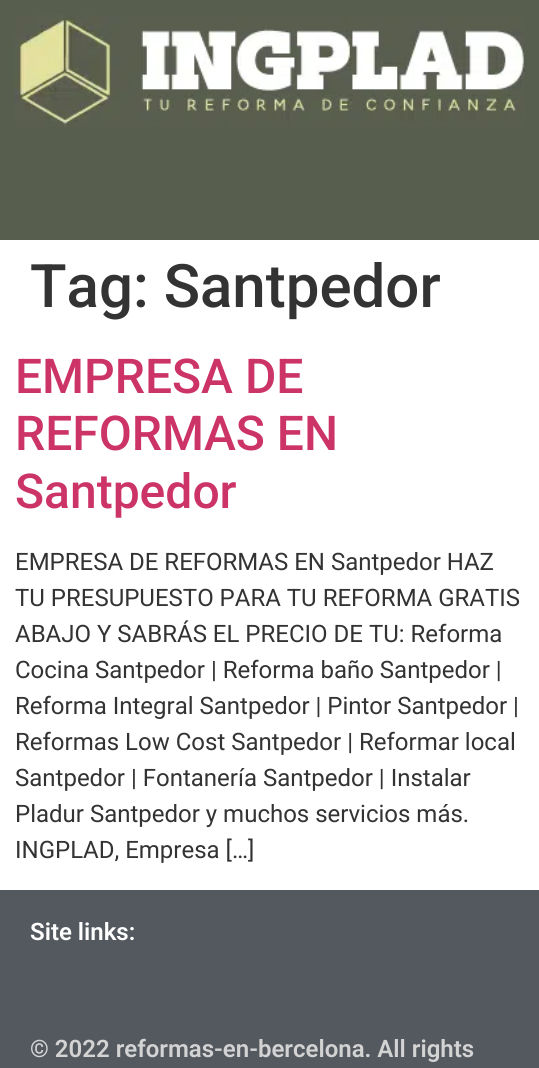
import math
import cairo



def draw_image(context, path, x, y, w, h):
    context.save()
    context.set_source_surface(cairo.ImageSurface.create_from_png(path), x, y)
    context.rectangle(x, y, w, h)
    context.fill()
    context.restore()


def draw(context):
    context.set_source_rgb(1, 1, 1)
    context.paint()
    context.set_source_rgb(88 / 255, 94 / 255, 78 / 255)
    context.rectangle(0, 0, 539, 240)
    context.fill()
    draw_image(context, "images/1.png", 15, 15, 510, 112)
    context.set_source_rgb(84 / 255, 89 / 255, 95 / 255)
    context.rectangle(0, 890, 539, 178)
    context.fill()
    context.select_font_face("Roboto Medium")
    context.set_font_size(60)
    context.set_source_rgb(51 / 255, 51 / 255, 51 / 255)
    context.move_to(30, 307)
    context.show_text("Tag: Santpedor")
    context.set_font_size(48)
    context.set_source_rgb(204 / 255, 51 / 255, 102 / 255)
    context.move_to(15, 393)
    context.show_text("EMPRESA DE")
    context.move_to(15, 450)
    context.show_text("REFORMAS EN")
    context.move_to(15, 508)
    context.show_text("Santpedor")
    context.select_font_face("Roboto")
    context.set_font_size(24)
    context.set_source_rgb(51 / 255, 51 / 255, 51 / 255)
    context.move_to(15, 570)
    context.show_text("EMPRESA DE REFORMAS EN Santpedor HAZ")
    context.move_to(15, 606)
    context.show_text("TU PRESUPUESTO PARA TU REFORMA GRATIS")
    context.move_to(15, 642)
    context.show_text("ABAJO Y SABRÁS EL PRECIO DE TU: Reforma")
    context.move_to(15, 678)
    context.show_text("Cocina Santpedor | Reforma baño Santpedor |")
    context.move_to(15, 714)
    context.show_text("Reforma Integral Santpedor | Pintor Santpedor |")
    context.move_to(15, 750)
    context.show_text("Reformas Low Cost Santpedor | Reformar local")
    context.move_to(15, 786)
    context.show_text("Santpedor | Fontanería Santpedor | Instalar")
    context.move_to(15, 822)
    context.show_text("Pladur Santpedor y muchos servicios más.")
    context.move_to(15, 858)
    context.show_text("INGPLAD, Empresa […]")
    context.select_font_face("Roboto SemiBold")
    context.set_source_rgb(1, 1, 1)
    context.move_to(30, 940)
    context.show_text("Site links:")
    context.set_source_rgb(211 / 255, 211 / 255, 211 / 255)
    context.move_to(30, 1057)
    context.show_text("© 2022 reformas-en-bercelona. All rights")


surface = cairo.ImageSurface(cairo.Format.RGB24, 539, 1068)
context = cairo.Context(surface)
options = cairo.FontOptions()
options.set_hint_metrics(cairo.HintMetrics.OFF)
options.set_hint_style(cairo.HintStyle.NONE)
context.set_font_options(options)
context.set_miter_limit(4)
draw(context)
surface.write_to_png("out.png")
